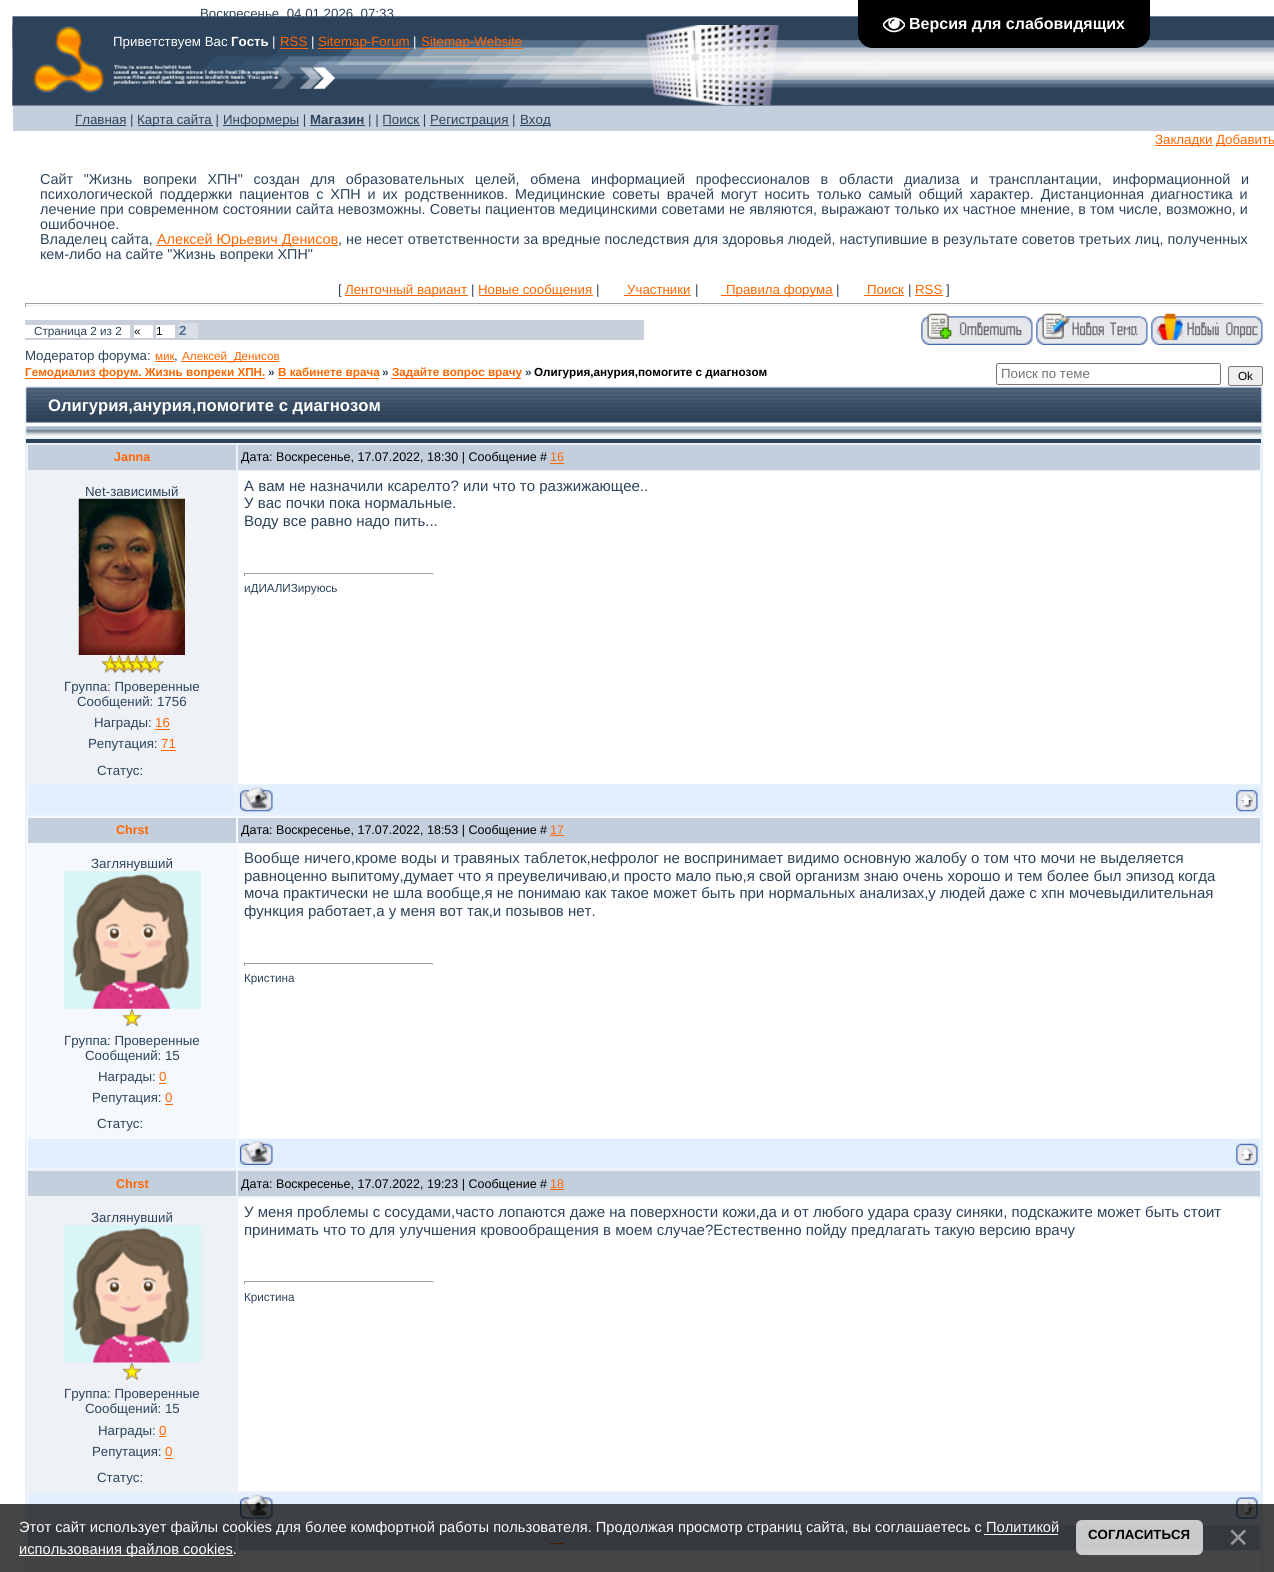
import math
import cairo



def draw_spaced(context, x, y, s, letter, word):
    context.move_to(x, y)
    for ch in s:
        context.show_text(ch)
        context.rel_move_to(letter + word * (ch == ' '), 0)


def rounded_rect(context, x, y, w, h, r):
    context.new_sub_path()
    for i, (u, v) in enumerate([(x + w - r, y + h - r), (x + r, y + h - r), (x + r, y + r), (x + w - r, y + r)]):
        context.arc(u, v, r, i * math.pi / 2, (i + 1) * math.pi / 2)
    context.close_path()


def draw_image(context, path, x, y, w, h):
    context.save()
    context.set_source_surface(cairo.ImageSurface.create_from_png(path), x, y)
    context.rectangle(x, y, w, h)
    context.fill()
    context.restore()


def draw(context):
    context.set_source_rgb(1, 1, 1)
    context.paint()
    draw_image(context, "images/1.png", 12, 16, 1262, 91)
    draw_image(context, "images/2.png", 12, 25, 873, 82)
    context.set_source_rgb(1, 102 / 255, 0)
    context.rectangle(280, 48, 28, 1)
    context.fill()
    context.rectangle(318, 48, 92, 1)
    context.fill()
    context.rectangle(420, 48, 103, 1)
    context.fill()
    context.set_source_rgb(196 / 255, 207 / 255, 221 / 255)
    context.rectangle(13, 106, 1261, 25)
    context.fill()
    context.set_source_rgb(45 / 255, 67 / 255, 91 / 255)
    context.rectangle(75, 125, 51, 1)
    context.fill()
    context.rectangle(138, 125, 75, 1)
    context.fill()
    context.rectangle(223, 125, 76, 1)
    context.fill()
    context.rectangle(310, 125, 55, 1)
    context.fill()
    context.rectangle(430, 125, 79, 1)
    context.fill()
    context.rectangle(520, 125, 30, 1)
    context.fill()
    context.rectangle(383, 125, 37, 1)
    context.fill()
    context.set_source_rgb(1, 102 / 255, 0)
    context.rectangle(1155, 145, 58, 1)
    context.fill()
    context.rectangle(1216, 145, 58, 1)
    context.fill()
    context.rectangle(156, 245, 182, 1)
    context.fill()
    context.rectangle(345, 295, 123, 1)
    context.fill()
    context.rectangle(479, 295, 114, 1)
    context.fill()
    context.rectangle(624, 295, 67, 1)
    context.fill()
    context.rectangle(721, 295, 112, 1)
    context.fill()
    context.rectangle(864, 295, 40, 1)
    context.fill()
    context.rectangle(915, 295, 28, 1)
    context.fill()
    context.set_source_rgb(159 / 255, 159 / 255, 159 / 255)
    context.rectangle(25, 303, 1238, 1)
    context.fill()
    context.set_source_rgb(238 / 255, 238 / 255, 238 / 255)
    context.rectangle(1261, 303, 1, 4)
    context.fill()
    context.rectangle(25, 305, 1238, 1)
    context.fill()
    context.set_source_rgb(159 / 255, 159 / 255, 159 / 255)
    context.rectangle(25, 303, 1, 4)
    context.fill()
    context.set_source_rgb(201 / 255, 208 / 255, 219 / 255)
    context.rectangle(25, 320, 619, 20)
    context.fill()
    context.set_source_rgb(1, 1, 1)
    context.rectangle(25, 325, 105, 13)
    context.fill()
    context.rectangle(134, 325, 19, 13)
    context.fill()
    context.rectangle(156, 325, 19, 13)
    context.fill()
    context.set_source_rgb(218 / 255, 223 / 255, 231 / 255)
    context.rectangle(179, 323, 19, 15)
    context.fill()
    draw_image(context, "images/3.png", 921, 313, 112, 32)
    draw_image(context, "images/4.png", 1036, 313, 112, 32)
    draw_image(context, "images/5.png", 1151, 313, 112, 32)
    context.set_source_rgb(1, 102 / 255, 0)
    context.rectangle(155, 361, 19, 1)
    context.fill()
    context.rectangle(181, 361, 98, 1)
    context.fill()
    context.rectangle(25, 378, 240, 1)
    context.fill()
    context.rectangle(278, 378, 101, 1)
    context.fill()
    context.rectangle(391, 378, 130, 1)
    context.fill()
    rounded_rect(context, 996.5, 363.5, 224, 21, 2)
    context.set_source_rgb(118 / 255, 118 / 255, 118 / 255)
    context.set_line_width(1)
    context.stroke()
    context.set_source_rgb(239 / 255, 239 / 255, 239 / 255)
    rounded_rect(context, 1228.5, 366.5, 34, 19, 2)
    context.fill_preserve()
    context.set_source_rgb(118 / 255, 118 / 255, 118 / 255)
    context.stroke()
    context.set_source_rgb(231 / 255, 241 / 255, 1)
    context.rectangle(25, 386, 1238, 1186)
    context.fill()
    draw_image(context, "images/6.png", 26, 387, 1236, 51)
    context.set_source_rgb(45 / 255, 67 / 255, 91 / 255)
    context.rectangle(26, 439, 1235, 4)
    context.fill()
    context.set_source_rgb(238 / 255, 242 / 255, 247 / 255)
    context.rectangle(26, 444, 1235, 371)
    context.fill()
    context.set_source_rgb(196 / 255, 207 / 255, 221 / 255)
    context.rectangle(28, 445, 208, 25)
    context.fill()
    context.rectangle(238, 445, 1022, 25)
    context.fill()
    context.set_source_rgb(1, 102 / 255, 0)
    context.rectangle(550, 463, 14, 1)
    context.fill()
    draw_image(context, "images/7.png", 78, 498, 107, 157)
    draw_image(context, "images/8.png", 101, 655, 63, 18)
    context.rectangle(155, 729, 15, 1)
    context.fill()
    context.rectangle(161, 750, 15, 1)
    context.fill()
    context.set_source_rgb(1, 1, 1)
    context.rectangle(238, 471, 1022, 313)
    context.fill()
    context.set_source_rgb(159 / 255, 159 / 255, 159 / 255)
    context.rectangle(244, 573, 190, 1)
    context.fill()
    context.set_source_rgb(238 / 255, 238 / 255, 238 / 255)
    context.rectangle(433, 573, 1, 3)
    context.fill()
    context.set_source_rgb(159 / 255, 159 / 255, 159 / 255)
    context.rectangle(244, 573, 1, 3)
    context.fill()
    context.set_source_rgb(226 / 255, 239 / 255, 1)
    context.rectangle(28, 785, 208, 29)
    context.fill()
    context.rectangle(238, 785, 1022, 29)
    context.fill()
    draw_image(context, "images/9.png", 240, 787, 33, 25)
    draw_image(context, "images/10.png", 1236, 789, 22, 23)
    context.set_source_rgb(245 / 255, 249 / 255, 253 / 255)
    context.rectangle(26, 816, 1235, 353)
    context.fill()
    context.set_source_rgb(196 / 255, 207 / 255, 221 / 255)
    context.rectangle(28, 818, 208, 25)
    context.fill()
    context.rectangle(238, 818, 1022, 25)
    context.fill()
    context.set_source_rgb(1, 102 / 255, 0)
    context.rectangle(550, 835, 14, 1)
    context.fill()
    draw_image(context, "images/11.png", 63, 871, 139, 138)
    draw_image(context, "images/12.png", 122, 1008, 20, 19)
    context.rectangle(159, 1083, 7, 1)
    context.fill()
    context.rectangle(165, 1104, 8, 1)
    context.fill()
    context.set_source_rgb(1, 1, 1)
    context.rectangle(238, 844, 1022, 294)
    context.fill()
    context.set_source_rgb(159 / 255, 159 / 255, 159 / 255)
    context.rectangle(244, 963, 190, 1)
    context.fill()
    context.set_source_rgb(238 / 255, 238 / 255, 238 / 255)
    context.rectangle(433, 963, 1, 3)
    context.fill()
    context.set_source_rgb(159 / 255, 159 / 255, 159 / 255)
    context.rectangle(244, 963, 1, 3)
    context.fill()
    context.set_source_rgb(226 / 255, 239 / 255, 1)
    context.rectangle(28, 1139, 208, 29)
    context.fill()
    context.rectangle(238, 1139, 1022, 29)
    context.fill()
    draw_image(context, "images/13.png", 240, 1141, 33, 24)
    draw_image(context, "images/14.png", 1236, 1143, 22, 22)
    context.set_source_rgb(238 / 255, 242 / 255, 247 / 255)
    context.rectangle(26, 1170, 1235, 353)
    context.fill()
    context.set_source_rgb(196 / 255, 207 / 255, 221 / 255)
    context.rectangle(28, 1171, 208, 25)
    context.fill()
    context.rectangle(238, 1171, 1022, 25)
    context.fill()
    context.set_source_rgb(1, 102 / 255, 0)
    context.rectangle(550, 1189, 14, 1)
    context.fill()
    draw_image(context, "images/15.png", 63, 1225, 139, 138)
    draw_image(context, "images/16.png", 122, 1362, 20, 18)
    context.rectangle(159, 1436, 7, 1)
    context.fill()
    context.rectangle(165, 1458, 8, 1)
    context.fill()
    context.set_source_rgb(1, 1, 1)
    context.rectangle(238, 1198, 1022, 293)
    context.fill()
    context.set_source_rgb(159 / 255, 159 / 255, 159 / 255)
    context.rectangle(244, 1281, 190, 1)
    context.fill()
    context.set_source_rgb(238 / 255, 238 / 255, 238 / 255)
    context.rectangle(433, 1281, 1, 3)
    context.fill()
    context.set_source_rgb(159 / 255, 159 / 255, 159 / 255)
    context.rectangle(244, 1281, 1, 3)
    context.fill()
    context.set_source_rgb(226 / 255, 239 / 255, 1)
    context.rectangle(28, 1493, 208, 28)
    context.fill()
    context.rectangle(238, 1493, 1022, 28)
    context.fill()
    draw_image(context, "images/17.png", 240, 1495, 33, 24)
    draw_image(context, "images/18.png", 1236, 1497, 22, 22)
    context.set_source_rgb(245 / 255, 249 / 255, 253 / 255)
    context.rectangle(26, 1524, 1235, 48)
    context.fill()
    context.set_source_rgb(196 / 255, 207 / 255, 221 / 255)
    context.rectangle(28, 1525, 208, 25)
    context.fill()
    context.rectangle(238, 1525, 1022, 25)
    context.fill()
    context.set_source_rgb(1, 102 / 255, 0)
    context.rectangle(550, 1543, 14, 1)
    context.fill()
    context.set_source_rgb(1, 1, 1)
    context.rectangle(238, 1551, 1022, 21)
    context.fill()
    context.set_source_rgb(0, 0, 0)
    context.new_path()
    context.move_to(858, 0)
    context.line_to(1150, 0)
    context.line_to(1150, 33)
    context.curve_to(1150, 41.5, 1143.5, 48, 1135, 48)
    context.line_to(873, 48)
    context.curve_to(864.5, 48, 858, 41.5, 858, 33)
    context.close_path()
    context.fill()
    draw_image(context, "images/19.png", 883, 17, 22, 16)
    context.set_source_rgba(0, 0, 0, 0.73)
    context.rectangle(0, 1504, 1274, 68)
    context.fill()
    context.set_source_rgb(1, 1, 1)
    context.rectangle(984, 1534, 74, 1)
    context.fill()
    context.rectangle(19, 1555, 214, 1)
    context.fill()
    context.set_source_rgba(1, 1, 1, 0.73)
    rounded_rect(context, 1076, 1520, 127, 35, 6)
    context.fill()
    context.select_font_face("Liberation Sans")
    context.set_font_size(13.3)
    context.set_source_rgb(45 / 255, 67 / 255, 91 / 255)
    context.move_to(200, 18)
    context.show_text("Воскресенье, 04.01.2026, 07:33")
    context.set_source_rgb(1, 1, 1)
    context.move_to(113, 46)
    context.show_text("Приветствуем Вас")
    context.select_font_face("Liberation Sans", cairo.FontSlant.NORMAL, cairo.FontWeight.BOLD)
    context.move_to(231, 46)
    context.show_text("Гость")
    context.select_font_face("Liberation Sans")
    context.move_to(272, 46)
    context.show_text("|")
    context.set_source_rgb(1, 102 / 255, 0)
    context.move_to(280, 46)
    context.show_text("RSS")
    context.set_source_rgb(1, 1, 1)
    context.move_to(311, 46)
    context.show_text("|")
    context.set_source_rgb(1, 102 / 255, 0)
    context.move_to(318, 46)
    context.show_text("Sitemap-Forum")
    context.set_source_rgb(1, 1, 1)
    context.move_to(413, 46)
    context.show_text("|")
    context.set_source_rgb(1, 102 / 255, 0)
    context.move_to(421, 46)
    context.show_text("Sitemap-Website")
    context.set_source_rgb(45 / 255, 67 / 255, 91 / 255)
    context.move_to(75, 124)
    context.show_text("Главная |")
    context.move_to(137, 124)
    context.show_text("Карта сайта |")
    context.move_to(223, 124)
    context.show_text("Информеры |")
    context.select_font_face("Liberation Sans", cairo.FontSlant.NORMAL, cairo.FontWeight.BOLD)
    context.move_to(310, 124)
    context.show_text("Магазин")
    context.select_font_face("Liberation Sans")
    context.move_to(368, 124)
    context.show_text("| | Поиск |")
    context.move_to(430, 124)
    context.show_text("Регистрация |")
    context.move_to(520, 124)
    context.show_text("Вход")
    context.set_source_rgb(1, 102 / 255, 0)
    context.move_to(1155, 144)
    context.show_text("Закладки")
    context.move_to(1216, 144)
    context.show_text("Добавить")
    context.set_font_size(14.38)
    context.set_source_rgb(45 / 255, 67 / 255, 91 / 255)
    draw_spaced(context, 40, 184, "Сайт \"Жизнь вопреки ХПН\" создан для образовательных целей, обмена информацией профессионалов в области диализа и трансплантации, информационной и", 0, 6.75)
    draw_spaced(context, 40, 199, "психологической поддержки пациентов с ХПН и их родственников. Медицинские советы врачей могут носить только самый общий характер. Дистанционная диагностика и", 0, 2.9)
    draw_spaced(context, 40, 214, "лечение при современном состоянии сайта невозможны. Советы пациентов медицинскими советами не являются, выражают только их частное мнение, в том числе, возможно, и", 0, 0.2)
    context.move_to(40, 229)
    context.show_text("ошибочное.")
    context.move_to(40, 244)
    context.show_text("Владелец сайта,")
    context.set_source_rgb(1, 102 / 255, 0)
    context.move_to(157, 244)
    context.show_text("Алексей Юрьевич Денисов")
    context.set_source_rgb(45 / 255, 67 / 255, 91 / 255)
    context.move_to(338, 244)
    context.show_text(", не несет ответственности за вредные последствия для здоровья людей, наступившие в результате советов третьих лиц, полученных")
    context.move_to(40, 259)
    context.show_text("кем-либо на сайте \"Жизнь вопреки ХПН\"")
    context.set_font_size(13.3)
    context.move_to(338, 294)
    context.show_text("[")
    context.set_source_rgb(1, 102 / 255, 0)
    context.move_to(345, 294)
    context.show_text("Ленточный вариант")
    context.set_source_rgb(45 / 255, 67 / 255, 91 / 255)
    context.move_to(471, 294)
    context.show_text("|")
    context.set_source_rgb(1, 102 / 255, 0)
    context.move_to(478, 294)
    context.show_text("Новые сообщения")
    context.set_source_rgb(45 / 255, 67 / 255, 91 / 255)
    context.move_to(596, 294)
    context.show_text("|")
    context.set_source_rgb(1, 102 / 255, 0)
    context.move_to(627, 294)
    context.show_text("Участники")
    context.set_source_rgb(45 / 255, 67 / 255, 91 / 255)
    context.move_to(695, 294)
    context.show_text("|")
    context.set_source_rgb(1, 102 / 255, 0)
    context.move_to(726, 294)
    context.show_text("Правила форума")
    context.set_source_rgb(45 / 255, 67 / 255, 91 / 255)
    context.move_to(836, 294)
    context.show_text("|")
    context.set_source_rgb(1, 102 / 255, 0)
    context.move_to(867, 294)
    context.show_text("Поиск")
    context.set_source_rgb(45 / 255, 67 / 255, 91 / 255)
    context.move_to(908, 294)
    context.show_text("|")
    context.set_source_rgb(1, 102 / 255, 0)
    context.move_to(915, 294)
    context.show_text("RSS")
    context.set_source_rgb(45 / 255, 67 / 255, 91 / 255)
    context.move_to(946, 294)
    context.show_text("]")
    context.set_font_size(11.7)
    context.move_to(34, 335)
    context.show_text("Страница 2 из 2")
    context.set_source_rgb(0, 0, 0)
    context.move_to(134, 335)
    context.show_text("«")
    context.move_to(156, 335)
    context.show_text("1")
    context.select_font_face("Liberation Sans", cairo.FontSlant.NORMAL, cairo.FontWeight.BOLD)
    context.set_font_size(13.3)
    context.set_source_rgb(77 / 255, 109 / 255, 145 / 255)
    context.move_to(179, 335)
    context.show_text("2")
    context.select_font_face("Liberation Sans")
    context.set_source_rgb(45 / 255, 67 / 255, 91 / 255)
    context.move_to(25, 360)
    context.show_text("Модератор форума:")
    context.set_font_size(11.7)
    context.set_source_rgb(1, 102 / 255, 0)
    context.move_to(155, 360)
    context.show_text("мик")
    context.set_font_size(13.3)
    context.set_source_rgb(45 / 255, 67 / 255, 91 / 255)
    context.move_to(174, 360)
    context.show_text(",")
    context.set_font_size(11.7)
    context.set_source_rgb(1, 102 / 255, 0)
    context.move_to(182, 360)
    context.show_text("Алексей_Денисов")
    context.select_font_face("Liberation Sans", cairo.FontSlant.NORMAL, cairo.FontWeight.BOLD)
    context.move_to(25, 376)
    context.show_text("Гемодиализ форум. Жизнь вопреки ХПН.")
    context.set_source_rgb(45 / 255, 67 / 255, 91 / 255)
    context.move_to(268, 376)
    context.show_text("»")
    context.set_source_rgb(1, 102 / 255, 0)
    context.move_to(278, 376)
    context.show_text("В кабинете врача")
    context.set_source_rgb(45 / 255, 67 / 255, 91 / 255)
    context.move_to(382, 376)
    context.show_text("»")
    context.set_source_rgb(1, 102 / 255, 0)
    context.move_to(392, 376)
    context.show_text("Задайте вопрос врачу")
    context.set_source_rgb(45 / 255, 67 / 255, 91 / 255)
    context.move_to(525, 376)
    context.show_text("»")
    context.set_source_rgb(0, 0, 0)
    context.move_to(534, 376)
    context.show_text("Олигурия,анурия,помогите с диагнозом")
    context.select_font_face("Liberation Sans")
    context.set_font_size(13.3)
    context.set_source_rgb(117 / 255, 117 / 255, 117 / 255)
    context.move_to(1001, 378)
    context.show_text("Поиск по теме")
    context.set_font_size(11.7)
    context.set_source_rgb(0, 0, 0)
    context.move_to(1238, 380)
    context.show_text("Ok")
    context.select_font_face("Liberation Sans", cairo.FontSlant.NORMAL, cairo.FontWeight.BOLD)
    context.set_font_size(16.7)
    context.set_source_rgb(1, 1, 1)
    context.move_to(48, 411)
    context.show_text("Олигурия,анурия,помогите с диагнозом")
    context.set_font_size(12.5)
    context.set_source_rgb(1, 102 / 255, 0)
    context.move_to(114, 461)
    context.show_text("Janna")
    context.select_font_face("Liberation Sans")
    context.set_source_rgb(0, 0, 0)
    context.move_to(241, 461)
    context.show_text("Дата: Воскресенье, 17.07.2022, 18:30 | Сообщение #")
    context.set_source_rgb(1, 102 / 255, 0)
    context.move_to(550, 461)
    context.show_text("16")
    context.set_font_size(13.3)
    context.set_source_rgb(45 / 255, 67 / 255, 91 / 255)
    context.move_to(85, 496)
    context.show_text("Net-зависимый")
    context.move_to(64, 691)
    context.show_text("Группа: Проверенные")
    context.move_to(77, 706)
    context.show_text("Сообщений: 1756")
    context.move_to(94, 727)
    context.show_text("Награды:")
    context.set_source_rgb(1, 102 / 255, 0)
    context.move_to(155, 727)
    context.show_text("16")
    context.set_source_rgb(45 / 255, 67 / 255, 91 / 255)
    context.move_to(88, 748)
    context.show_text("Репутация:")
    context.set_source_rgb(1, 102 / 255, 0)
    context.move_to(161, 748)
    context.show_text("71")
    context.set_source_rgb(45 / 255, 67 / 255, 91 / 255)
    context.move_to(97, 775)
    context.show_text("Статус:")
    context.set_font_size(15)
    context.move_to(244, 491)
    context.show_text("А вам не назначили ксарелто? или что то разжижающее..")
    context.move_to(244, 508)
    context.show_text("У вас почки пока нормальные.")
    context.move_to(244, 526)
    context.show_text("Воду все равно надо пить...")
    context.set_font_size(11.7)
    context.move_to(244, 592)
    context.show_text("иДИАЛИЗируюсь")
    context.select_font_face("Liberation Sans", cairo.FontSlant.NORMAL, cairo.FontWeight.BOLD)
    context.set_font_size(12.5)
    context.set_source_rgb(1, 102 / 255, 0)
    context.move_to(116, 834)
    context.show_text("Chrst")
    context.select_font_face("Liberation Sans")
    context.set_source_rgb(0, 0, 0)
    context.move_to(241, 834)
    context.show_text("Дата: Воскресенье, 17.07.2022, 18:53 | Сообщение #")
    context.set_source_rgb(1, 102 / 255, 0)
    context.move_to(550, 834)
    context.show_text("17")
    context.set_font_size(13.3)
    context.set_source_rgb(45 / 255, 67 / 255, 91 / 255)
    context.move_to(91, 868)
    context.show_text("Заглянувший")
    context.move_to(64, 1045)
    context.show_text("Группа: Проверенные")
    context.move_to(85, 1060)
    context.show_text("Сообщений: 15")
    context.move_to(98, 1081)
    context.show_text("Награды:")
    context.set_source_rgb(1, 102 / 255, 0)
    context.move_to(159, 1081)
    context.show_text("0")
    context.set_source_rgb(45 / 255, 67 / 255, 91 / 255)
    context.move_to(92, 1102)
    context.show_text("Репутация:")
    context.set_source_rgb(1, 102 / 255, 0)
    context.move_to(165, 1102)
    context.show_text("0")
    context.set_source_rgb(45 / 255, 67 / 255, 91 / 255)
    context.move_to(97, 1128)
    context.show_text("Статус:")
    context.set_font_size(15)
    context.move_to(244, 863)
    context.show_text("Вообще ничего,кроме воды и травяных таблеток,нефролог не воспринимает видимо основную жалобу о том что мочи не выделяется")
    context.move_to(244, 881)
    context.show_text("равноценно выпитому,думает что я преувеличиваю,и просто мало пью,я свой организм знаю очень хорошо и тем более был эпизод когда")
    context.move_to(244, 898)
    context.show_text("моча практически не шла вообще,я не понимаю как такое может быть при нормальных анализах,у людей даже с хпн мочевыдилительная")
    context.move_to(244, 916)
    context.show_text("функция работает,а у меня вот так,и позывов нет.")
    context.set_font_size(11.7)
    context.move_to(244, 982)
    context.show_text("Кристина")
    context.select_font_face("Liberation Sans", cairo.FontSlant.NORMAL, cairo.FontWeight.BOLD)
    context.set_font_size(12.5)
    context.set_source_rgb(1, 102 / 255, 0)
    context.move_to(116, 1188)
    context.show_text("Chrst")
    context.select_font_face("Liberation Sans")
    context.set_source_rgb(0, 0, 0)
    context.move_to(241, 1188)
    context.show_text("Дата: Воскресенье, 17.07.2022, 19:23 | Сообщение #")
    context.set_source_rgb(1, 102 / 255, 0)
    context.move_to(550, 1188)
    context.show_text("18")
    context.set_font_size(13.3)
    context.set_source_rgb(45 / 255, 67 / 255, 91 / 255)
    context.move_to(91, 1222)
    context.show_text("Заглянувший")
    context.move_to(64, 1398)
    context.show_text("Группа: Проверенные")
    context.move_to(85, 1413)
    context.show_text("Сообщений: 15")
    context.move_to(98, 1435)
    context.show_text("Награды:")
    context.set_source_rgb(1, 102 / 255, 0)
    context.move_to(159, 1435)
    context.show_text("0")
    context.set_source_rgb(45 / 255, 67 / 255, 91 / 255)
    context.move_to(92, 1456)
    context.show_text("Репутация:")
    context.set_source_rgb(1, 102 / 255, 0)
    context.move_to(165, 1456)
    context.show_text("0")
    context.set_source_rgb(45 / 255, 67 / 255, 91 / 255)
    context.move_to(97, 1482)
    context.show_text("Статус:")
    context.set_font_size(15)
    context.move_to(244, 1217)
    context.show_text("У меня проблемы с сосудами,часто лопаются даже на поверхности кожи,да и от любого удара сразу синяки, подскажите может быть стоит")
    context.move_to(244, 1235)
    context.show_text("принимать что то для улучшения кровообращения в моем случае?Естественно пойду предлагать такую версию врачу")
    context.set_font_size(11.7)
    context.move_to(244, 1301)
    context.show_text("Кристина")
    context.select_font_face("Liberation Sans", cairo.FontSlant.NORMAL, cairo.FontWeight.BOLD)
    context.set_font_size(16)
    context.set_source_rgb(1, 1, 1)
    context.move_to(909, 29)
    context.show_text("Версия для слабовидящих")
    context.select_font_face("Liberation Sans")
    context.set_font_size(14.67)
    context.move_to(19, 1532)
    context.show_text("Этот сайт использует файлы cookies для более комфортной работы пользователя. Продолжая просмотр страниц сайта, вы соглашаетесь с Политикой")
    context.move_to(19, 1554)
    context.show_text("использования файлов cookies.")
    context.select_font_face("Liberation Sans", cairo.FontSlant.NORMAL, cairo.FontWeight.BOLD)
    context.set_font_size(13.25)
    context.set_source_rgb(0, 0, 0)
    context.move_to(1088, 1539)
    context.show_text("СОГЛАСИТЬСЯ")
    context.select_font_face("Liberation Sans")
    context.set_font_size(35)
    context.set_source_rgb(153 / 255, 153 / 255, 153 / 255)
    context.move_to(1228, 1549)
    context.show_text("×")


surface = cairo.ImageSurface(cairo.Format.RGB24, 1274, 1572)
context = cairo.Context(surface)
options = cairo.FontOptions()
options.set_hint_metrics(cairo.HintMetrics.OFF)
options.set_hint_style(cairo.HintStyle.NONE)
context.set_font_options(options)
context.set_miter_limit(4)
draw(context)
surface.write_to_png("out.png")
